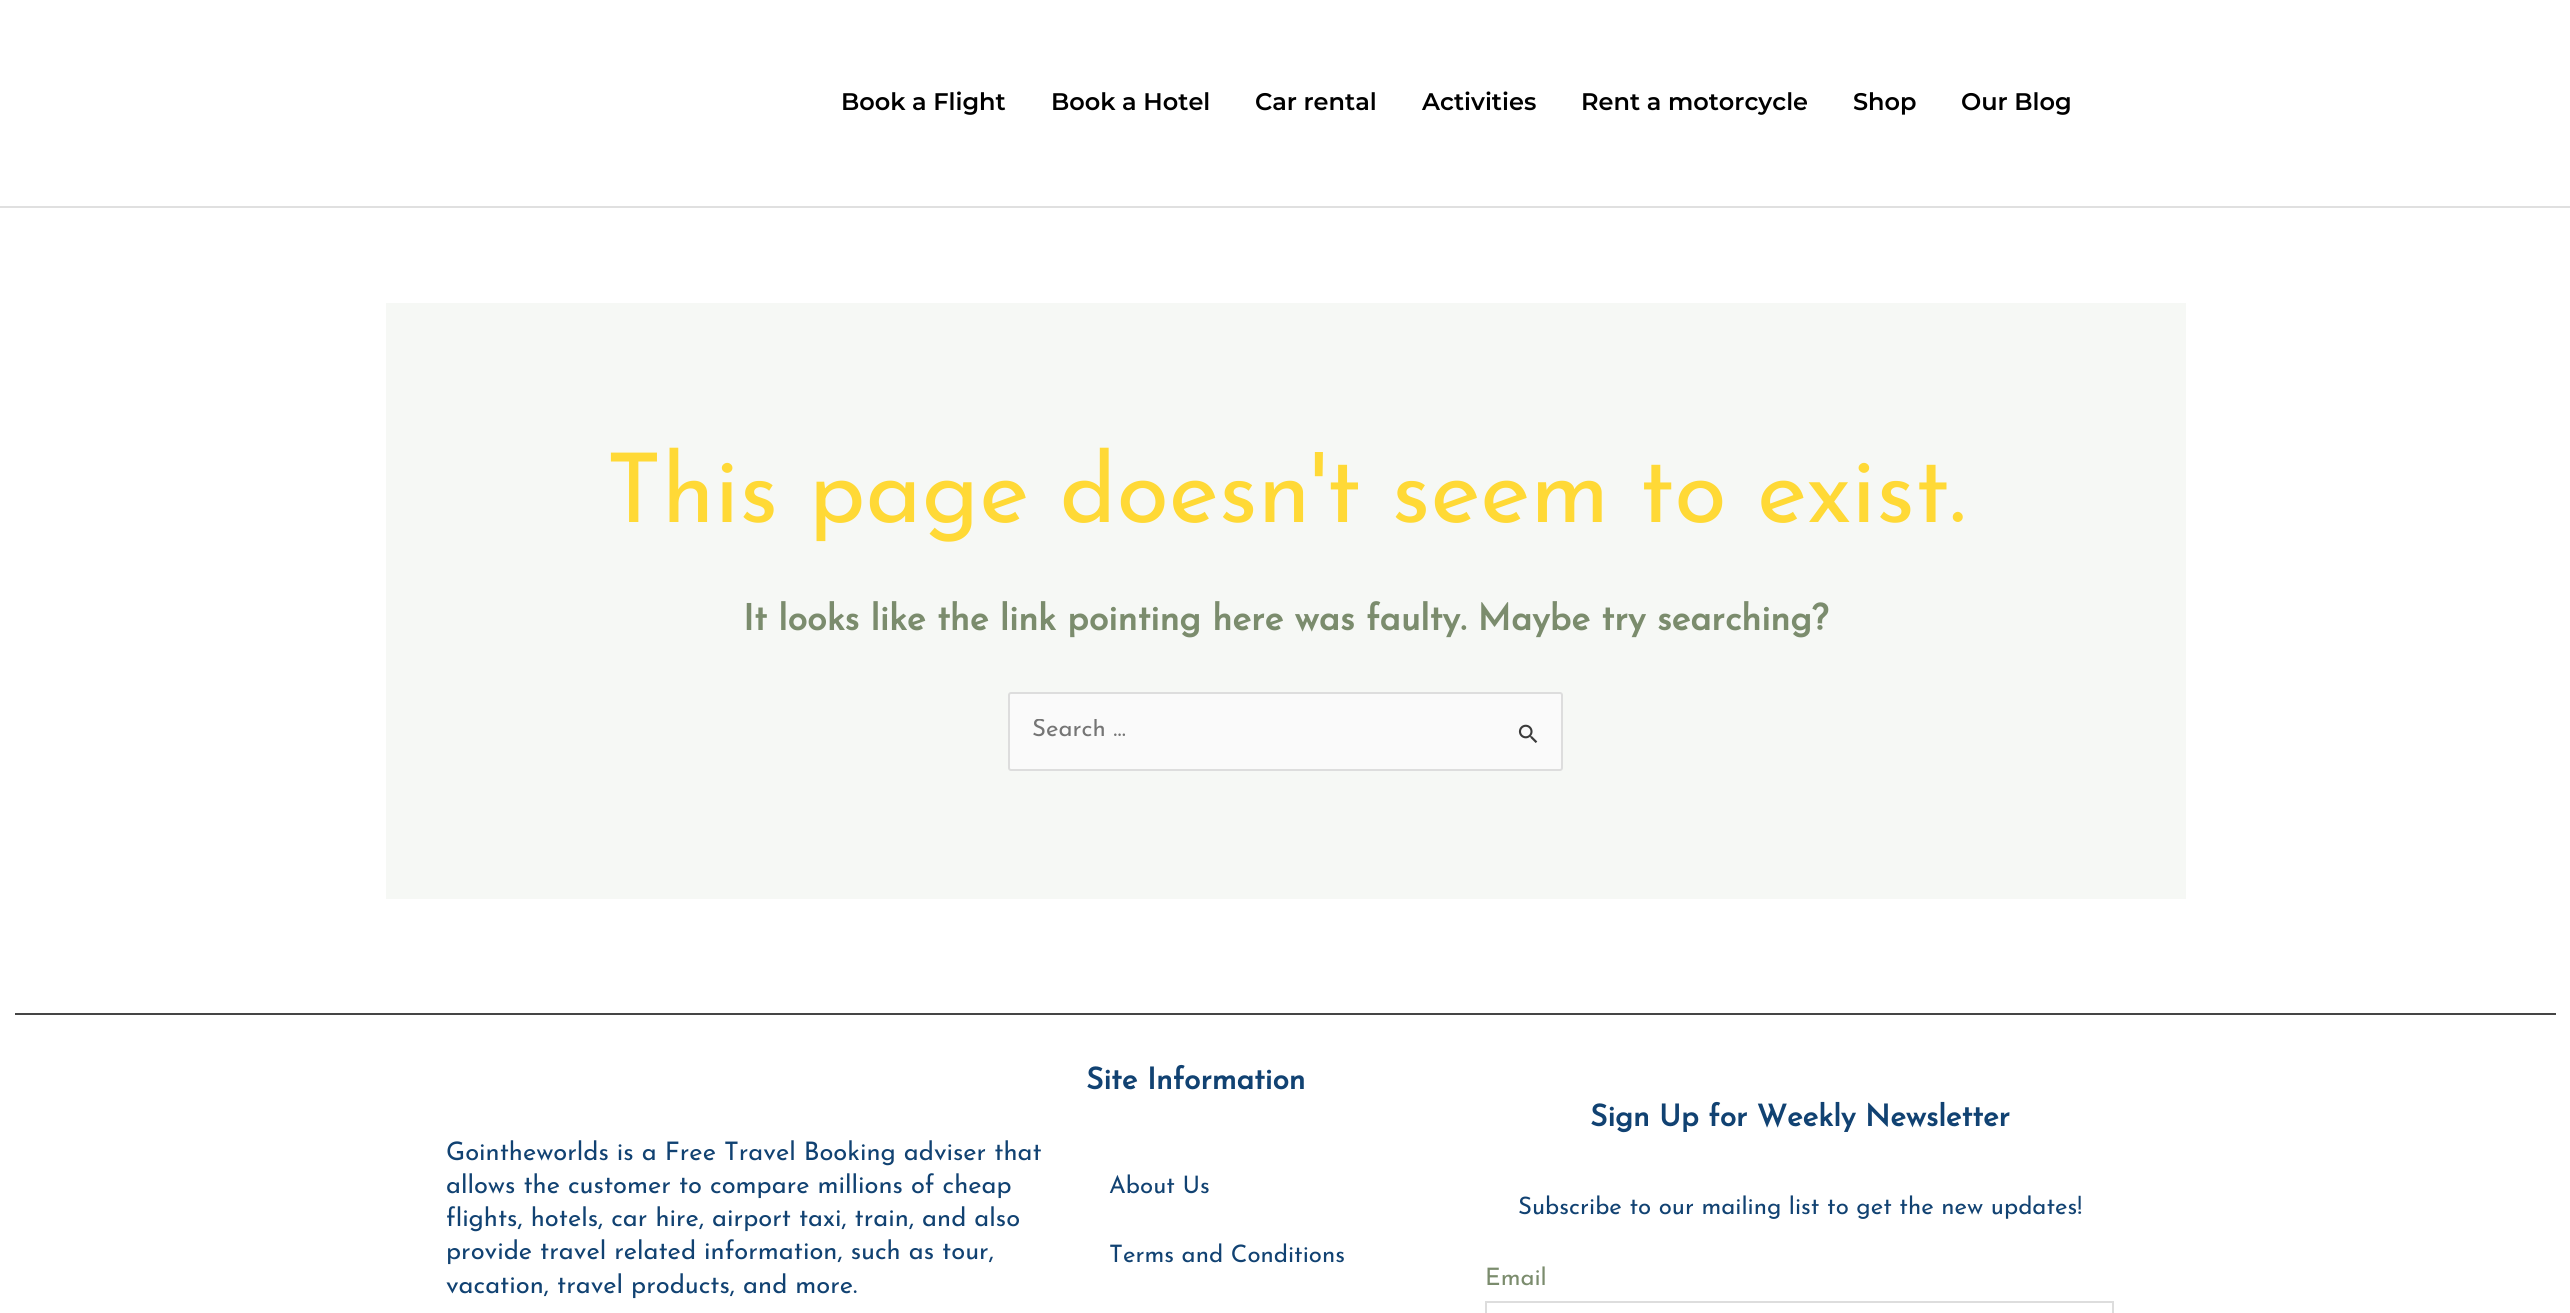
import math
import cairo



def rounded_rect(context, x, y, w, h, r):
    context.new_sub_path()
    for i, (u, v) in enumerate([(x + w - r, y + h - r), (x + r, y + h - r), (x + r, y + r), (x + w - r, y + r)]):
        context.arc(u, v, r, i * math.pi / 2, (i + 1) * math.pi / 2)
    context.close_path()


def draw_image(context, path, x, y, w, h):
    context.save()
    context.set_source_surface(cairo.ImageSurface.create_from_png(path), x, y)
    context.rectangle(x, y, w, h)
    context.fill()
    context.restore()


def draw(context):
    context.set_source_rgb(1, 1, 1)
    context.paint()
    context.set_source_rgb(224 / 255, 224 / 255, 224 / 255)
    context.rectangle(0, 206, 2570, 2)
    context.fill()
    context.set_source_rgb(246 / 255, 248 / 255, 245 / 255)
    context.rectangle(386, 303, 1800, 596)
    context.fill()
    context.set_source_rgb(250 / 255, 250 / 255, 250 / 255)
    rounded_rect(context, 1009, 693, 553, 77, 2)
    context.fill_preserve()
    context.set_source_rgb(221 / 255, 221 / 255, 221 / 255)
    context.stroke()
    draw_image(context, "images/1.png", 1518, 724, 20, 19)
    context.set_source_rgb(69 / 255, 69 / 255, 69 / 255)
    context.rectangle(15, 1013, 2541, 2)
    context.fill()
    context.rectangle(1486, 1302, 627, 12)
    context.set_source_rgb(221 / 255, 221 / 255, 221 / 255)
    context.stroke()
    context.select_font_face("Montserrat SemiBold")
    context.set_font_size(24)
    context.set_source_rgb(0, 0, 0)
    context.move_to(841, 110)
    context.show_text("Book a Flight")
    context.move_to(1051, 110)
    context.show_text("Book a Hotel")
    context.move_to(1255, 110)
    context.show_text("Car rental")
    context.move_to(1422, 110)
    context.show_text("Activities")
    context.move_to(1581, 110)
    context.show_text("Rent a motorcycle")
    context.move_to(1853, 110)
    context.show_text("Shop")
    context.move_to(1961, 110)
    context.show_text("Our Blog")
    context.select_font_face("Josefin Sans Thin")
    context.set_font_size(96)
    context.set_source_rgb(1, 217 / 255, 54 / 255)
    context.move_to(606, 522)
    context.show_text("This page doesn't seem to exist.")
    context.select_font_face("Josefin Sans", cairo.FontSlant.NORMAL, cairo.FontWeight.BOLD)
    context.set_font_size(36)
    context.set_source_rgb(123 / 255, 140 / 255, 109 / 255)
    context.move_to(743, 630)
    context.show_text("It looks like the link pointing here was faulty. Maybe try searching?")
    context.save()
    context.rectangle(1032, 719, 456, 24)
    context.clip()
    context.select_font_face("Josefin Sans Thin")
    context.set_font_size(24)
    context.set_source_rgb(117 / 255, 117 / 255, 117 / 255)
    context.move_to(1032, 736)
    context.show_text("Search …")
    context.restore()
    context.select_font_face("Josefin Sans Thin")
    context.set_font_size(25.5)
    context.set_source_rgb(17 / 255, 66 / 255, 114 / 255)
    context.move_to(446, 1160)
    context.show_text("Gointheworlds is a Free Travel Booking adviser that")
    context.move_to(446, 1193)
    context.show_text("allows the customer to compare millions of cheap")
    context.move_to(446, 1226)
    context.show_text("flights, hotels, car hire, airport taxi, train, and also")
    context.move_to(446, 1259)
    context.show_text("provide travel related information, such as tour,")
    context.move_to(446, 1293)
    context.show_text("vacation, travel products, and more.")
    context.select_font_face("Josefin Sans", cairo.FontSlant.NORMAL, cairo.FontWeight.BOLD)
    context.set_font_size(30)
    context.move_to(1086, 1089)
    context.show_text("Site Information")
    context.select_font_face("Josefin Sans Thin")
    context.set_font_size(24)
    context.move_to(1109, 1193)
    context.show_text("About Us")
    context.move_to(1109, 1262)
    context.show_text("Terms and Conditions")
    context.select_font_face("Josefin Sans", cairo.FontSlant.NORMAL, cairo.FontWeight.BOLD)
    context.set_font_size(30)
    context.move_to(1590, 1126)
    context.show_text("Sign Up for Weekly Newsletter")
    context.select_font_face("Josefin Sans Thin")
    context.set_font_size(24)
    context.move_to(1518, 1214)
    context.show_text("Subscribe to our mailing list to get the new updates!")
    context.set_source_rgb(123 / 255, 140 / 255, 109 / 255)
    context.move_to(1485, 1285)
    context.show_text("Email")


surface = cairo.ImageSurface(cairo.Format.RGB24, 2570, 1313)
context = cairo.Context(surface)
options = cairo.FontOptions()
options.set_hint_metrics(cairo.HintMetrics.OFF)
options.set_hint_style(cairo.HintStyle.NONE)
context.set_font_options(options)
context.set_miter_limit(4)
draw(context)
surface.write_to_png("out.png")
